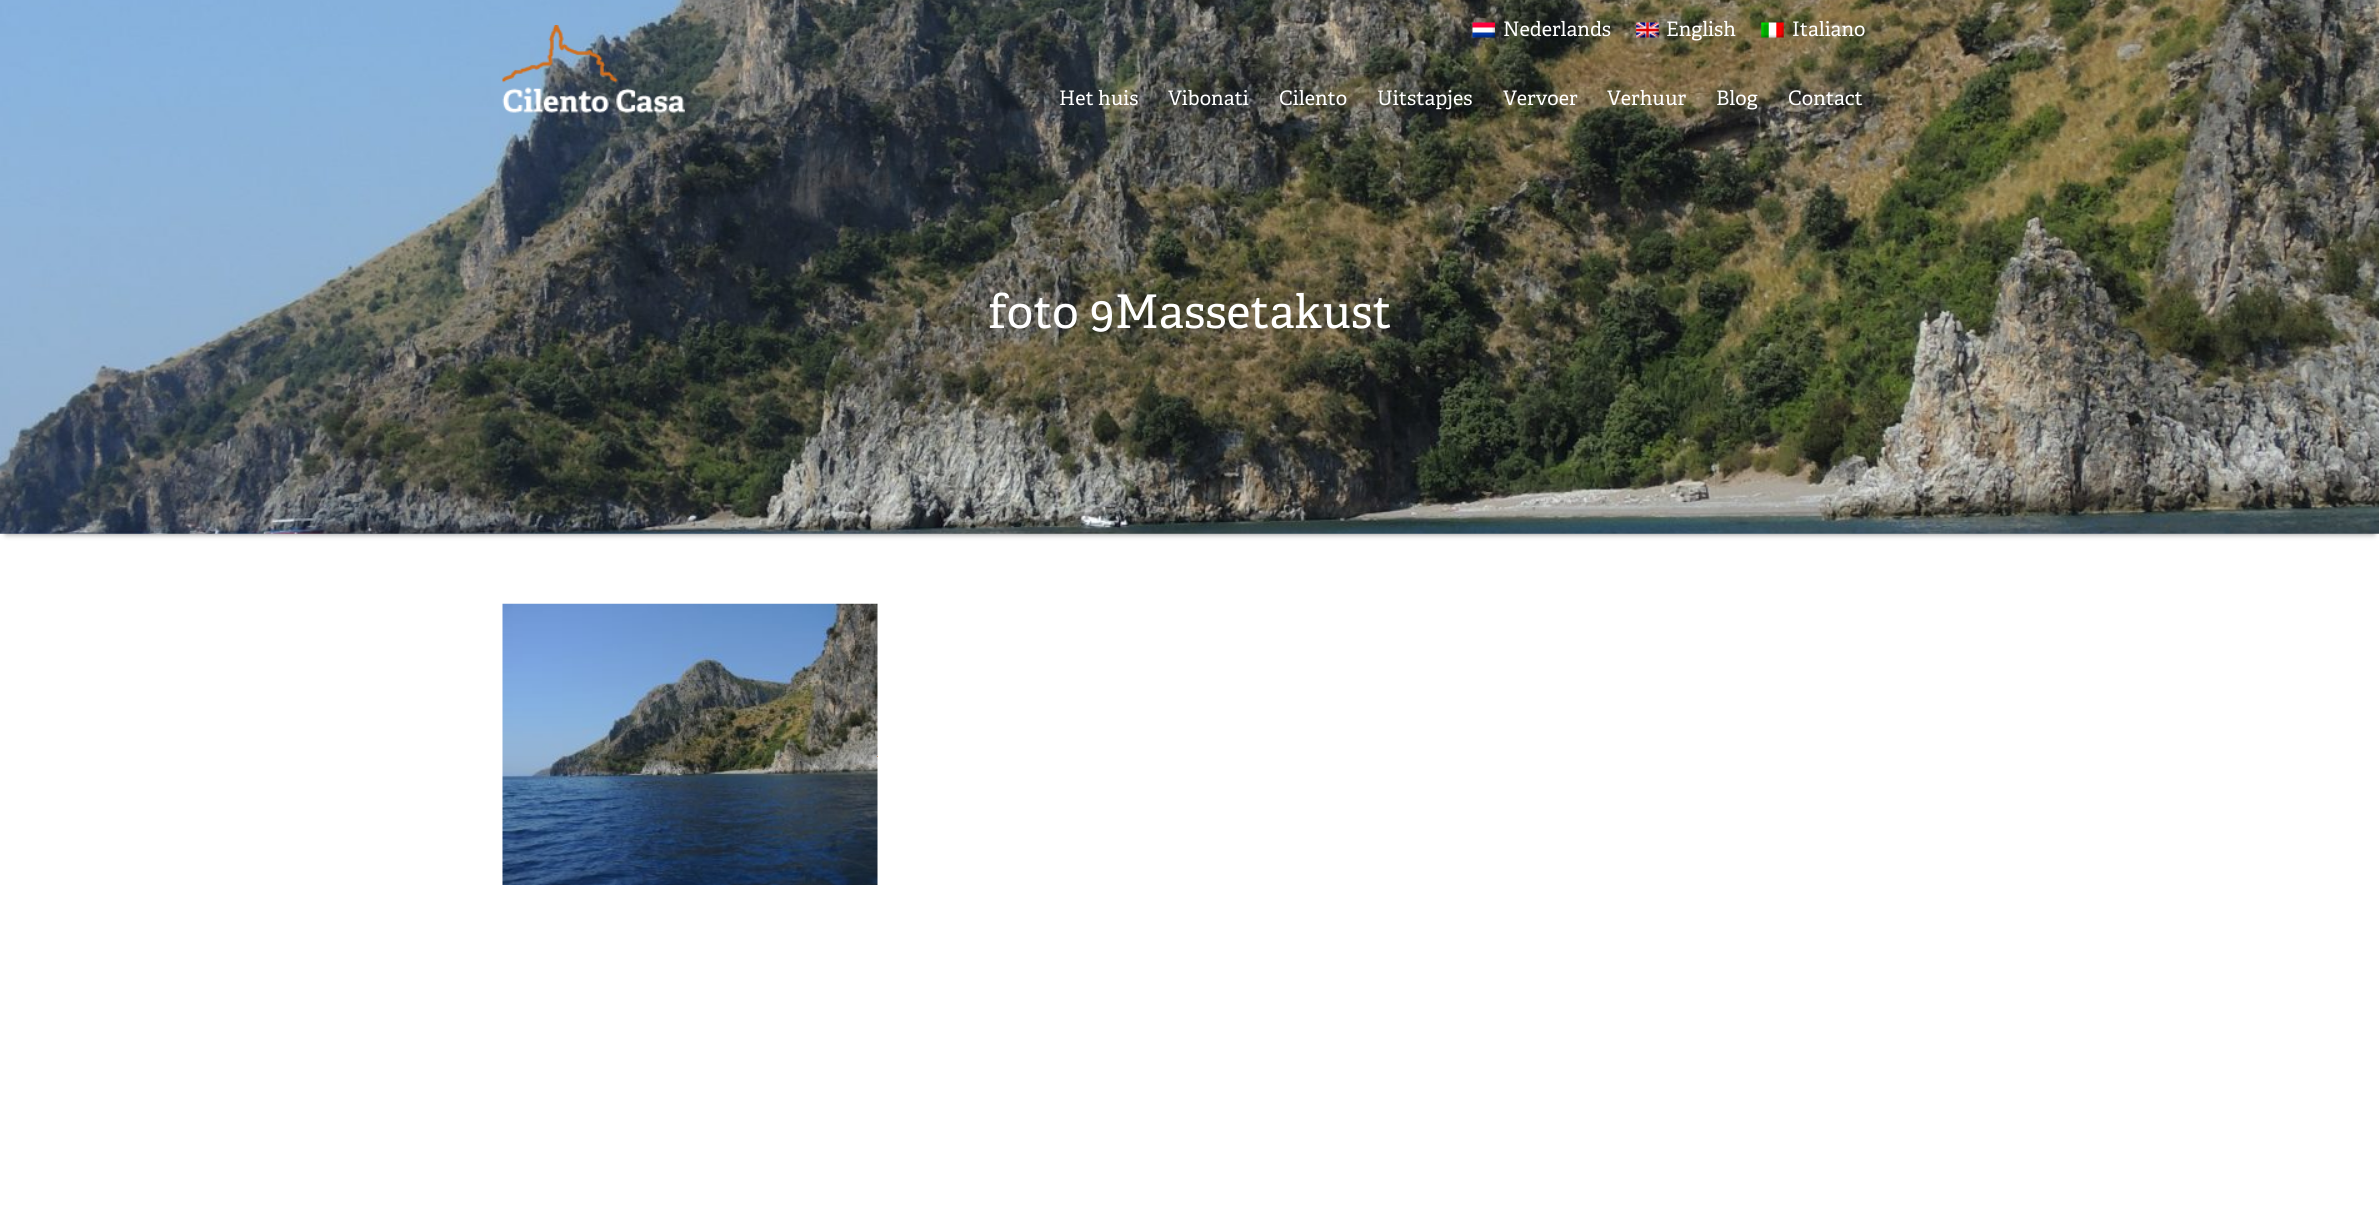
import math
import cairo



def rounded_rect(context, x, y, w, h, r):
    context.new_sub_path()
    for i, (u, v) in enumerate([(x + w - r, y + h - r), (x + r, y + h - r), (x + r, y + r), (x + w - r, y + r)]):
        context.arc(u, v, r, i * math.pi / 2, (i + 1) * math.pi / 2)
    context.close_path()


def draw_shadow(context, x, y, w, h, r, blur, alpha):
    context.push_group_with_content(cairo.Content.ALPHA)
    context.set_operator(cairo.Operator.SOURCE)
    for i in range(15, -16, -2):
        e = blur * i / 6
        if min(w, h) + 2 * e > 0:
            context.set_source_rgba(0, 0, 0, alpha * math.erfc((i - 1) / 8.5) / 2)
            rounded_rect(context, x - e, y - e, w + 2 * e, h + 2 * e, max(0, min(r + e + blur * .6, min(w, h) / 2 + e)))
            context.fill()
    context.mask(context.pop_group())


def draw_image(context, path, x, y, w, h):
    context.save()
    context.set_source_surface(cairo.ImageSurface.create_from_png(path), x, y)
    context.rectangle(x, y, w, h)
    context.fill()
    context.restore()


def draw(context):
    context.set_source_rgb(1, 1, 1)
    context.paint()
    context.set_source_rgb(136 / 255, 136 / 255, 136 / 255)
    draw_shadow(context, 6, 13, 2368, 521, 0, 3, 1)
    draw_image(context, "images/1.png", 0, 0, 2379, 534)
    draw_image(context, "images/2.png", 1472, 22, 23, 16)
    draw_image(context, "images/3.png", 1636, 22, 23, 16)
    draw_image(context, "images/4.png", 1761, 22, 23, 16)
    draw_image(context, "images/5.png", 502, 25, 183, 88)
    context.set_source_rgb(210 / 255, 111 / 255, 30 / 255)
    context.rectangle(877, 756, 1, 1)
    context.fill()
    draw_image(context, "images/6.png", 502, 603, 376, 282)
    context.select_font_face("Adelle")
    context.set_font_size(20)
    context.set_source_rgb(1, 1, 1)
    context.move_to(1503, 36)
    context.show_text("Nederlands")
    context.move_to(1666, 36)
    context.show_text("English")
    context.move_to(1792, 36)
    context.show_text("Italiano")
    context.move_to(1059, 105)
    context.show_text("Het huis")
    context.move_to(1168, 105)
    context.show_text("Vibonati")
    context.move_to(1279, 105)
    context.show_text("Cilento")
    context.move_to(1377, 105)
    context.show_text("Uitstapjes")
    context.move_to(1503, 105)
    context.show_text("Vervoer")
    context.move_to(1607, 105)
    context.show_text("Verhuur")
    context.move_to(1716, 105)
    context.show_text("Blog")
    context.move_to(1788, 105)
    context.show_text("Contact")
    context.set_font_size(46.4)
    context.move_to(988, 328)
    context.show_text("foto 9Massetakust")


surface = cairo.ImageSurface(cairo.Format.RGB24, 2379, 1206)
context = cairo.Context(surface)
options = cairo.FontOptions()
options.set_hint_metrics(cairo.HintMetrics.OFF)
options.set_hint_style(cairo.HintStyle.NONE)
context.set_font_options(options)
context.set_miter_limit(4)
draw(context)
surface.write_to_png("out.png")
